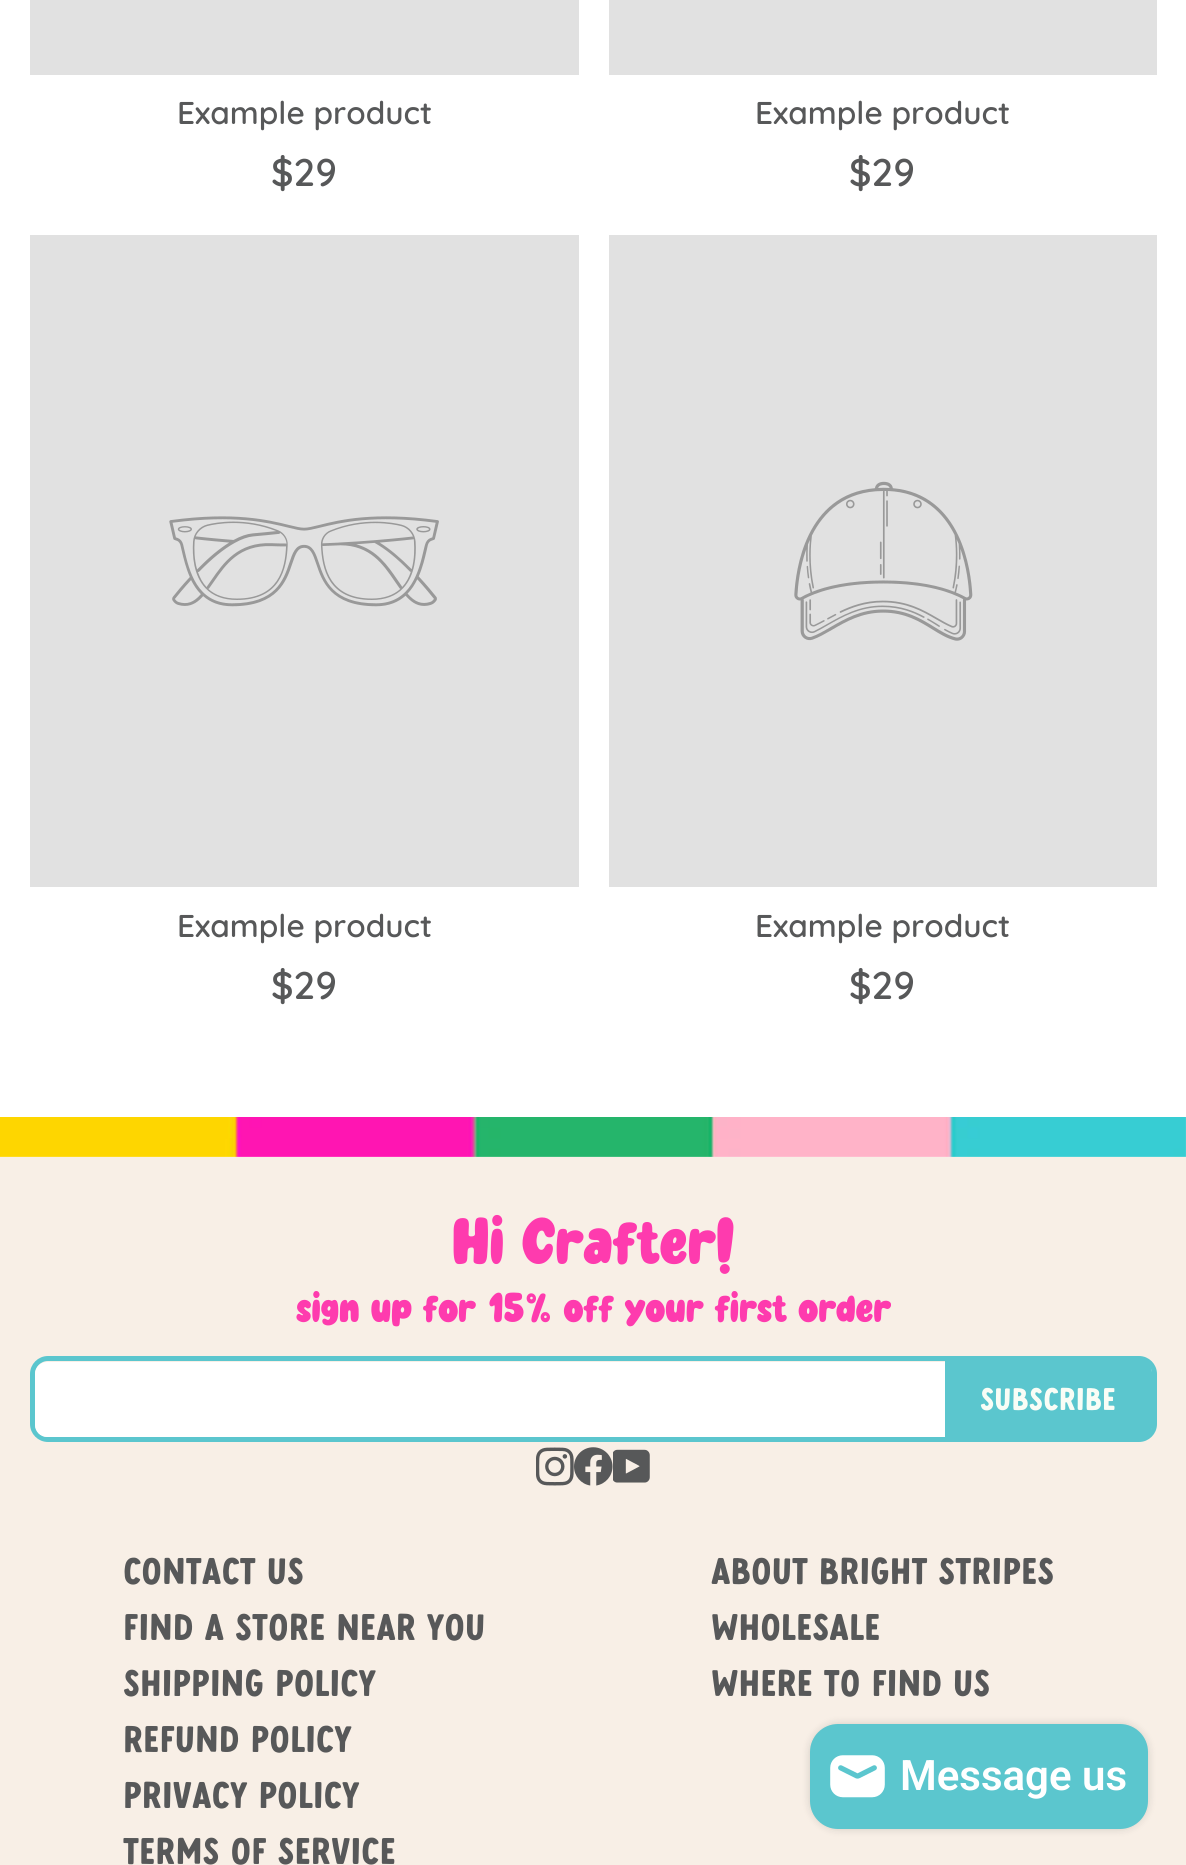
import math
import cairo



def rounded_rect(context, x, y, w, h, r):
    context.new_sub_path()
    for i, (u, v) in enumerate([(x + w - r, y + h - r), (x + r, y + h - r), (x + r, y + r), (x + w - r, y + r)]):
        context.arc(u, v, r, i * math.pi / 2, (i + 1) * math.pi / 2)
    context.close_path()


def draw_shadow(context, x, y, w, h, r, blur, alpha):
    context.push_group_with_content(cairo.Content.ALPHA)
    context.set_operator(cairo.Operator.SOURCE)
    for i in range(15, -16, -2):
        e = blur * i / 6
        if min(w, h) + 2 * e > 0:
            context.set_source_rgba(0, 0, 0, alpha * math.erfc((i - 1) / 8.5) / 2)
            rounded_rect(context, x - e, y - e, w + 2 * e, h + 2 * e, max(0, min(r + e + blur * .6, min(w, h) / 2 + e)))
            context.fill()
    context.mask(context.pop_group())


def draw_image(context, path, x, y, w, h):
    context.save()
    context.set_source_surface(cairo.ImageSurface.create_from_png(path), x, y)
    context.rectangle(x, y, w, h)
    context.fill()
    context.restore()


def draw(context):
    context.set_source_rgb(1, 1, 1)
    context.paint()
    context.set_source_rgb(225 / 255, 225 / 255, 225 / 255)
    context.rectangle(30, 0, 549, 75)
    context.fill()
    context.rectangle(609, 0, 548, 75)
    context.fill()
    context.rectangle(30, 235, 549, 652)
    context.fill()
    draw_image(context, "images/1.png", 169, 516, 270, 91)
    context.rectangle(609, 235, 548, 652)
    context.fill()
    draw_image(context, "images/2.png", 794, 481, 179, 160)
    draw_image(context, "images/3.png", 0, 1117, 1186, 40)
    context.set_source_rgb(248 / 255, 239 / 255, 230 / 255)
    context.rectangle(0, 1157, 1186, 708)
    context.fill()
    rounded_rect(context, 32.5, 1358.5, 1122, 81, 15.5)
    context.set_source_rgb(91 / 255, 198 / 255, 206 / 255)
    context.set_line_width(5)
    context.stroke()
    context.set_source_rgb(1, 1, 1)
    rounded_rect(context, 35, 1362, 1117, 75, 12)
    context.fill()
    context.set_source_rgb(91 / 255, 198 / 255, 206 / 255)
    context.new_path()
    context.move_to(945, 1360)
    context.line_to(1140, 1360)
    context.curve_to(1146.5, 1360, 1152, 1365.5, 1152, 1372)
    context.line_to(1152, 1428)
    context.curve_to(1152, 1434.5, 1146.5, 1440, 1140, 1440)
    context.line_to(945, 1440)
    context.close_path()
    context.fill()
    draw_image(context, "images/4.png", 536, 1447, 38, 39)
    draw_image(context, "images/5.png", 574, 1447, 39, 39)
    draw_image(context, "images/6.png", 613, 1449, 37, 34)
    context.set_source_rgb(0, 0, 0)
    draw_shadow(context, 810, 1724, 338, 105, 28, 4.5, 0.15)
    context.set_source_rgb(91 / 255, 198 / 255, 206 / 255)
    rounded_rect(context, 810, 1724, 338, 105, 28)
    context.fill()
    draw_image(context, "images/7.png", 830, 1755, 55, 43)
    context.select_font_face("Quicksand SemiBold")
    context.set_font_size(31.5)
    context.set_source_rgb(87 / 255, 88 / 255, 89 / 255)
    context.move_to(177, 124)
    context.show_text("Example product")
    context.set_font_size(38.5)
    context.move_to(271, 186)
    context.show_text("$29")
    context.set_font_size(31.5)
    context.move_to(755, 124)
    context.show_text("Example product")
    context.set_font_size(38.5)
    context.move_to(849, 186)
    context.show_text("$29")
    context.set_font_size(31.5)
    context.move_to(177, 937)
    context.show_text("Example product")
    context.set_font_size(38.5)
    context.move_to(271, 999)
    context.show_text("$29")
    context.set_font_size(31.5)
    context.move_to(755, 937)
    context.show_text("Example product")
    context.set_font_size(38.5)
    context.move_to(849, 999)
    context.show_text("$29")
    context.select_font_face("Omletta")
    context.set_font_size(66.5)
    context.set_source_rgb(254 / 255, 59 / 255, 174 / 255)
    context.move_to(452, 1264)
    context.show_text("Hi Crafter!")
    context.set_font_size(42)
    context.move_to(296, 1322)
    context.show_text("sign up for 15% off your first order")
    context.select_font_face("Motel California")
    context.set_font_size(32.5)
    context.set_source_rgb(249 / 255, 253 / 255, 246 / 255)
    context.move_to(980, 1410)
    context.show_text("Subscribe")
    context.set_font_size(38.5)
    context.set_source_rgb(87 / 255, 88 / 255, 89 / 255)
    context.move_to(123, 1584)
    context.show_text("Contact Us")
    context.move_to(123, 1640)
    context.show_text("Find a Store Near You")
    context.move_to(123, 1696)
    context.show_text("Shipping Policy")
    context.move_to(123, 1752)
    context.show_text("Refund Policy")
    context.move_to(123, 1808)
    context.show_text("Privacy Policy")
    context.move_to(123, 1864)
    context.show_text("Terms of Service")
    context.move_to(711, 1584)
    context.show_text("About Bright Stripes")
    context.move_to(711, 1640)
    context.show_text("Wholesale")
    context.move_to(711, 1696)
    context.show_text("Where To Find Us")
    context.select_font_face("Roboto SemiBold")
    context.set_font_size(42)
    context.set_source_rgb(1, 1, 1)
    context.move_to(900, 1790)
    context.show_text("Message us")


surface = cairo.ImageSurface(cairo.Format.RGB24, 1186, 1865)
context = cairo.Context(surface)
options = cairo.FontOptions()
options.set_hint_metrics(cairo.HintMetrics.OFF)
options.set_hint_style(cairo.HintStyle.NONE)
context.set_font_options(options)
context.set_miter_limit(4)
draw(context)
surface.write_to_png("out.png")
